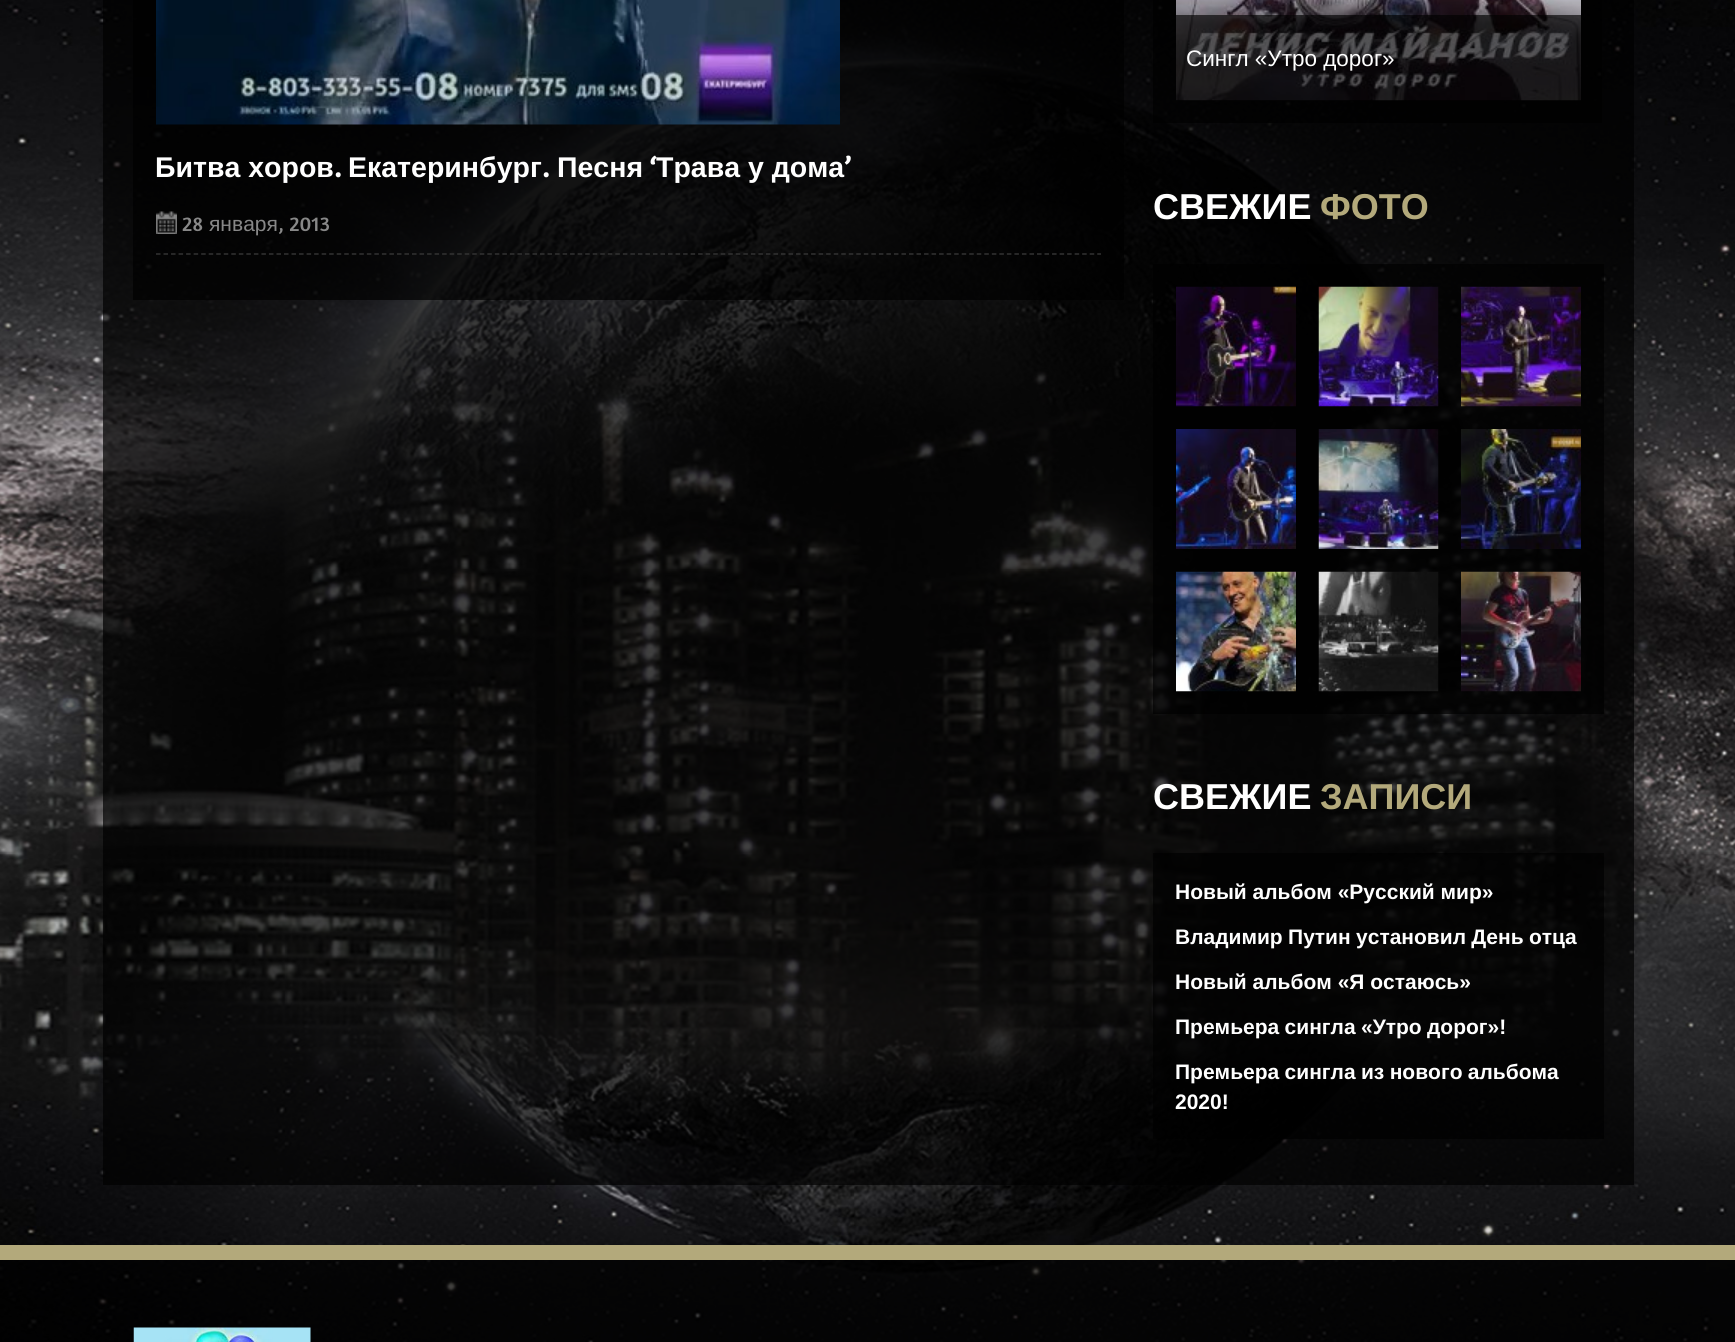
import math
import cairo



def draw_spaced(context, x, y, s, letter, word):
    context.move_to(x, y)
    for ch in s:
        context.show_text(ch)
        context.rel_move_to(letter + word * (ch == ' '), 0)


def draw_image(context, path, x, y, w, h):
    context.save()
    context.set_source_surface(cairo.ImageSurface.create_from_png(path), x, y)
    context.rectangle(x, y, w, h)
    context.fill()
    context.restore()


def draw(context):
    context.set_source_rgb(1, 1, 1)
    context.paint()
    draw_image(context, "images/1.png", 0, 0, 1735, 1342)
    context.set_source_rgba(0, 0, 0, 0.7)
    context.rectangle(103, 0, 1531, 1185)
    context.fill()
    context.rectangle(133, 0, 991, 300)
    context.fill()
    draw_image(context, "images/2.png", 156, 0, 684, 125)
    draw_image(context, "images/3.png", 156, 211, 21, 23)
    context.new_path()
    context.move_to(156, 254)
    context.line_to(1101, 254)
    context.set_source_rgb(51 / 255, 51 / 255, 51 / 255)
    context.set_line_width(1.5)
    context.set_dash([4.5, 3.03])
    context.stroke()
    context.set_source_rgba(0, 0, 0, 0.7)
    context.rectangle(1153, 0, 449, 123)
    context.fill()
    draw_image(context, "images/4.png", 1176, 0, 405, 101)
    context.set_source_rgba(0, 0, 0, 0.64)
    context.rectangle(1176, 15, 405, 86)
    context.fill()
    context.set_source_rgba(0, 0, 0, 0.7)
    context.rectangle(1153, 264, 451, 450)
    context.fill()
    draw_image(context, "images/5.png", 1176, 286, 120, 121)
    draw_image(context, "images/6.png", 1318, 286, 121, 121)
    draw_image(context, "images/7.png", 1461, 286, 120, 121)
    draw_image(context, "images/8.png", 1176, 429, 120, 120)
    draw_image(context, "images/9.png", 1318, 429, 121, 120)
    draw_image(context, "images/10.png", 1461, 429, 120, 120)
    draw_image(context, "images/11.png", 1176, 571, 120, 121)
    draw_image(context, "images/12.png", 1318, 571, 121, 121)
    draw_image(context, "images/13.png", 1461, 571, 120, 121)
    context.rectangle(1153, 853, 451, 286)
    context.fill()
    context.rectangle(0, 1260, 1735, 82)
    context.fill()
    context.set_source_rgb(179 / 255, 169 / 255, 123 / 255)
    context.rectangle(0, 1245, 1735, 15)
    context.fill()
    draw_image(context, "images/14.png", 133, 1327, 178, 15)
    context.select_font_face("Liberation Sans", cairo.FontSlant.NORMAL, cairo.FontWeight.BOLD)
    context.set_font_size(28.5)
    context.set_source_rgb(1, 1, 1)
    context.move_to(155, 177)
    context.show_text("Битва хоров")
    context.select_font_face("Amaranth", cairo.FontSlant.NORMAL, cairo.FontWeight.BOLD)
    context.move_to(334, 177)
    context.show_text(".")
    context.select_font_face("Liberation Sans", cairo.FontSlant.NORMAL, cairo.FontWeight.BOLD)
    context.move_to(348, 177)
    context.show_text("Екатеринбург")
    context.select_font_face("Amaranth", cairo.FontSlant.NORMAL, cairo.FontWeight.BOLD)
    context.move_to(542, 177)
    context.show_text(".")
    context.select_font_face("Liberation Sans", cairo.FontSlant.NORMAL, cairo.FontWeight.BOLD)
    context.move_to(557, 177)
    context.show_text("Песня")
    context.select_font_face("Amaranth", cairo.FontSlant.NORMAL, cairo.FontWeight.BOLD)
    context.move_to(650, 177)
    context.show_text("‘")
    context.select_font_face("Liberation Sans", cairo.FontSlant.NORMAL, cairo.FontWeight.BOLD)
    context.move_to(656, 177)
    context.show_text("Трава у дома")
    context.select_font_face("Amaranth", cairo.FontSlant.NORMAL, cairo.FontWeight.BOLD)
    context.move_to(844, 177)
    context.show_text("’")
    context.select_font_face("Amaranth")
    context.set_font_size(21)
    context.set_source_rgb(136 / 255, 136 / 255, 136 / 255)
    context.move_to(182, 231)
    context.show_text("28")
    context.select_font_face("Liberation Sans")
    context.move_to(209, 231)
    context.show_text("января")
    context.select_font_face("Amaranth")
    context.move_to(278, 231)
    context.show_text(", 2013")
    context.select_font_face("Liberation Sans")
    context.set_font_size(22.5)
    context.set_source_rgb(1, 1, 1)
    context.move_to(1186, 66)
    context.show_text("Сингл «Утро дорог»")
    context.select_font_face("Liberation Sans", cairo.FontSlant.NORMAL, cairo.FontWeight.BOLD)
    context.set_font_size(36)
    context.move_to(1153, 219)
    context.show_text("СВЕЖИЕ")
    context.set_source_rgb(179 / 255, 169 / 255, 123 / 255)
    context.move_to(1320, 219)
    context.show_text("ФОТО")
    context.set_source_rgb(1, 1, 1)
    context.move_to(1153, 809)
    context.show_text("СВЕЖИЕ")
    context.set_source_rgb(179 / 255, 169 / 255, 123 / 255)
    context.move_to(1320, 809)
    context.show_text("ЗАПИСИ")
    context.set_font_size(21)
    context.set_source_rgb(1, 1, 1)
    context.move_to(1175, 899)
    context.show_text("Новый альбом «Русский мир»")
    draw_spaced(context, 1175, 944, "Владимир Путин установил День отца", 0, -0.5)
    context.move_to(1175, 989)
    context.show_text("Новый альбом «Я остаюсь»")
    draw_spaced(context, 1175, 1034, "Премьера сингла «Утро дорог»!", 0, -0.5)
    draw_spaced(context, 1175, 1079, "Премьера сингла из нового альбома", 0, -0.5)
    context.move_to(1175, 1109)
    context.show_text("2020!")


surface = cairo.ImageSurface(cairo.Format.RGB24, 1735, 1342)
context = cairo.Context(surface)
options = cairo.FontOptions()
options.set_hint_metrics(cairo.HintMetrics.OFF)
options.set_hint_style(cairo.HintStyle.NONE)
context.set_font_options(options)
context.set_miter_limit(4)
draw(context)
surface.write_to_png("out.png")
